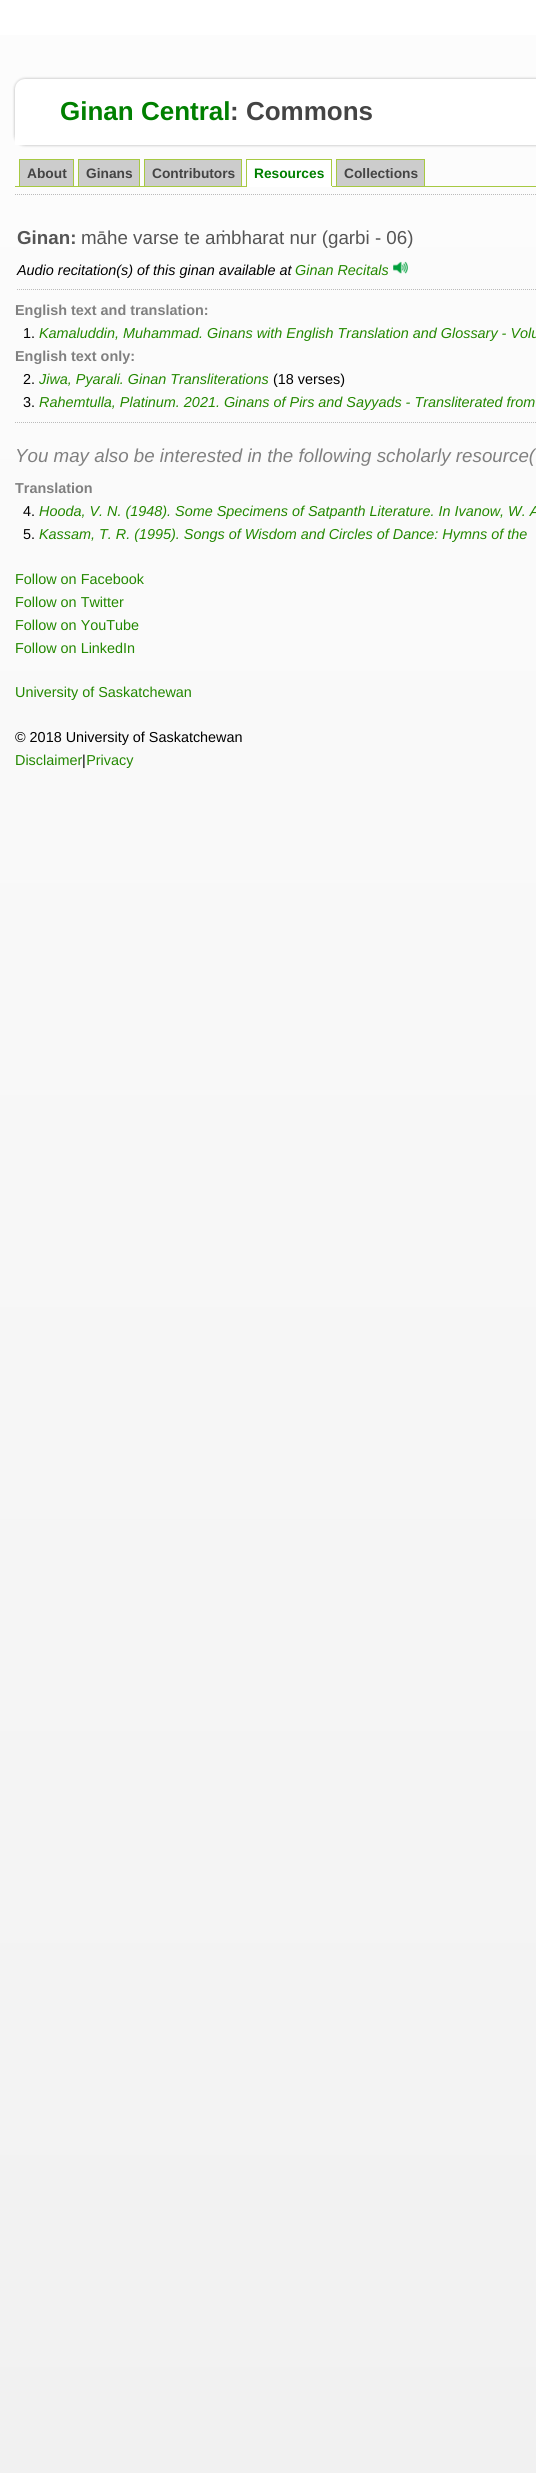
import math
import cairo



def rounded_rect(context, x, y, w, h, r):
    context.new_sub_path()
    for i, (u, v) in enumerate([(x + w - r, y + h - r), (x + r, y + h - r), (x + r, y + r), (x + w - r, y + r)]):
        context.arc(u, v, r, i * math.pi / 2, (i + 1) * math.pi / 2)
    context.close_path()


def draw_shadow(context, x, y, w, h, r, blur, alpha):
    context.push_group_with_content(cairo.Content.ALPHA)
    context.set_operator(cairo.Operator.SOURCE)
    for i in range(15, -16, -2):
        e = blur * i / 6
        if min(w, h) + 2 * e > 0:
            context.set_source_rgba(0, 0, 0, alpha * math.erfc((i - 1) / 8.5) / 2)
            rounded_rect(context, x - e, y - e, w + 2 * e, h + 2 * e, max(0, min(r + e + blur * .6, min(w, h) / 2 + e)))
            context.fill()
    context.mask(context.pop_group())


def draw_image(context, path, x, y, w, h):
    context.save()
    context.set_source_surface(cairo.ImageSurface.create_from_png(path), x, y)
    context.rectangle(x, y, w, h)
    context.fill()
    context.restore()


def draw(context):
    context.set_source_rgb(1, 1, 1)
    context.paint()
    gradient = cairo.LinearGradient(0, 2473, 0, -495)
    gradient.add_color_stop_rgba(0, 241 / 255, 241 / 255, 241 / 255, 1)
    gradient.add_color_stop_rgba(1, 1, 1, 1, 1)
    context.set_source(gradient)
    context.rectangle(0, 35, 536, 2438)
    context.fill()
    context.set_source_rgb(0, 0, 0)
    draw_shadow(context, 15, 79, 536, 66, 10, 1.5, 0.3)
    context.set_source_rgb(1, 1, 1)
    context.new_path()
    context.move_to(25, 79)
    context.line_to(536, 79)
    context.curve_to(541.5, 79, 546, 83.5, 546, 89)
    context.line_to(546, 145)
    context.line_to(15, 145)
    context.line_to(15, 89)
    context.curve_to(15, 83.5, 19.5, 79, 25, 79)
    context.close_path()
    context.fill()
    context.set_source_rgb(167 / 255, 201 / 255, 66 / 255)
    context.rectangle(15, 186, 521, 1)
    context.fill()
    context.set_source_rgb(204 / 255, 204 / 255, 204 / 255)
    context.rectangle(19.5, 159.5, 54, 27)
    context.fill_preserve()
    context.set_source_rgb(167 / 255, 201 / 255, 66 / 255)
    context.set_line_width(1)
    context.stroke()
    context.set_source_rgb(204 / 255, 204 / 255, 204 / 255)
    context.rectangle(78.5, 159.5, 61, 27)
    context.fill_preserve()
    context.set_source_rgb(167 / 255, 201 / 255, 66 / 255)
    context.stroke()
    context.set_source_rgb(204 / 255, 204 / 255, 204 / 255)
    context.rectangle(144.5, 159.5, 97, 27)
    context.fill_preserve()
    context.set_source_rgb(167 / 255, 201 / 255, 66 / 255)
    context.stroke()
    context.set_source_rgb(1, 1, 1)
    context.rectangle(247, 160, 84, 26)
    context.fill()
    context.set_source_rgb(167 / 255, 201 / 255, 66 / 255)
    context.rectangle(246, 159, 86, 1)
    context.fill()
    context.rectangle(331, 159, 1, 28)
    context.fill()
    context.set_source_rgb(1, 1, 1)
    context.rectangle(246, 186, 86, 1)
    context.fill()
    context.set_source_rgb(167 / 255, 201 / 255, 66 / 255)
    context.rectangle(246, 159, 1, 28)
    context.fill()
    context.set_source_rgb(204 / 255, 204 / 255, 204 / 255)
    context.rectangle(336.5, 159.5, 88, 27)
    context.fill_preserve()
    context.set_source_rgb(167 / 255, 201 / 255, 66 / 255)
    context.stroke()
    context.new_path()
    context.move_to(15, 194.5)
    context.line_to(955, 194.5)
    context.set_source_rgb(187 / 255, 187 / 255, 187 / 255)
    context.set_dash([1, 1])
    context.stroke()
    draw_image(context, "images/1.png", 393, 261, 15, 13)
    context.new_path()
    context.move_to(17, 289.5)
    context.line_to(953, 289.5)
    context.stroke()
    context.new_path()
    context.move_to(15, 422.5)
    context.line_to(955, 422.5)
    context.stroke()
    context.select_font_face("Liberation Sans", cairo.FontSlant.NORMAL, cairo.FontWeight.BOLD)
    context.set_font_size(26)
    context.set_source_rgb(0, 128 / 255, 0)
    context.move_to(60, 120)
    context.show_text("Ginan Central")
    context.set_source_rgb(68 / 255, 68 / 255, 68 / 255)
    context.move_to(230, 120)
    context.show_text(": Commons")
    context.set_font_size(13.75)
    context.move_to(27, 178)
    context.show_text("About")
    context.move_to(86, 178)
    context.show_text("Ginans")
    context.move_to(152, 178)
    context.show_text("Contributors")
    context.set_source_rgb(0, 128 / 255, 0)
    context.move_to(254, 178)
    context.show_text("Resources")
    context.set_source_rgb(68 / 255, 68 / 255, 68 / 255)
    context.move_to(344, 178)
    context.show_text("Collections")
    context.set_font_size(18.75)
    context.set_source_rgb(85 / 255, 85 / 255, 85 / 255)
    context.move_to(17, 244)
    context.show_text("Ginan:")
    context.select_font_face("Liberation Sans")
    context.move_to(81, 244)
    context.show_text("māhe varse te aṁbharat nur (garbi - 06)")
    context.select_font_face("Liberation Sans", cairo.FontSlant.ITALIC)
    context.set_font_size(14.4)
    context.set_source_rgb(0, 0, 0)
    context.move_to(17, 275)
    context.show_text("Audio recitation(s) of this ginan available at")
    context.set_source_rgb(35 / 255, 136 / 255, 0)
    context.move_to(295, 275)
    context.show_text("Ginan Recitals")
    context.select_font_face("Liberation Sans", cairo.FontSlant.NORMAL, cairo.FontWeight.BOLD)
    context.set_source_rgb(128 / 255, 128 / 255, 128 / 255)
    context.move_to(15, 315)
    context.show_text("English text and translation:")
    context.select_font_face("Liberation Sans")
    context.set_source_rgb(0, 0, 0)
    context.move_to(23, 338)
    context.show_text("1.")
    context.select_font_face("Liberation Sans", cairo.FontSlant.ITALIC)
    context.set_source_rgb(35 / 255, 136 / 255, 0)
    context.move_to(39, 338)
    context.show_text("Kamaluddin, Muhammad. Ginans with English Translation and Glossary - Volu")
    context.select_font_face("Liberation Sans", cairo.FontSlant.NORMAL, cairo.FontWeight.BOLD)
    context.set_source_rgb(128 / 255, 128 / 255, 128 / 255)
    context.move_to(15, 361)
    context.show_text("English text only:")
    context.select_font_face("Liberation Sans")
    context.set_source_rgb(0, 0, 0)
    context.move_to(23, 384)
    context.show_text("2.")
    context.select_font_face("Liberation Sans", cairo.FontSlant.ITALIC)
    context.set_source_rgb(35 / 255, 136 / 255, 0)
    context.move_to(39, 384)
    context.show_text("Jiwa, Pyarali. Ginan Transliterations")
    context.select_font_face("Liberation Sans")
    context.set_source_rgb(0, 0, 0)
    context.move_to(273, 384)
    context.show_text("(18 verses)")
    context.move_to(23, 407)
    context.show_text("3.")
    context.select_font_face("Liberation Sans", cairo.FontSlant.ITALIC)
    context.set_source_rgb(35 / 255, 136 / 255, 0)
    context.move_to(39, 407)
    context.show_text("Rahemtulla, Platinum. 2021. Ginans of Pirs and Sayyads - Transliterated from")
    context.set_font_size(18.75)
    context.set_source_rgb(128 / 255, 128 / 255, 128 / 255)
    context.move_to(15, 462)
    context.show_text("You may also be interested in the following scholarly resource(")
    context.select_font_face("Liberation Sans", cairo.FontSlant.NORMAL, cairo.FontWeight.BOLD)
    context.set_font_size(14.4)
    context.move_to(15, 493)
    context.show_text("Translation")
    context.select_font_face("Liberation Sans")
    context.set_source_rgb(0, 0, 0)
    context.move_to(23, 516)
    context.show_text("4.")
    context.select_font_face("Liberation Sans", cairo.FontSlant.ITALIC)
    context.set_source_rgb(35 / 255, 136 / 255, 0)
    context.move_to(39, 516)
    context.show_text("Hooda, V. N. (1948). Some Specimens of Satpanth Literature. In Ivanow, W. A")
    context.select_font_face("Liberation Sans")
    context.set_source_rgb(0, 0, 0)
    context.move_to(23, 539)
    context.show_text("5.")
    context.select_font_face("Liberation Sans", cairo.FontSlant.ITALIC)
    context.set_source_rgb(35 / 255, 136 / 255, 0)
    context.move_to(39, 539)
    context.show_text("Kassam, T. R. (1995). Songs of Wisdom and Circles of Dance: Hymns of the")
    context.select_font_face("Liberation Sans")
    context.move_to(15, 584)
    context.show_text("Follow on Facebook")
    context.move_to(15, 607)
    context.show_text("Follow on Twitter")
    context.move_to(15, 630)
    context.show_text("Follow on YouTube")
    context.move_to(15, 653)
    context.show_text("Follow on LinkedIn")
    context.move_to(15, 697)
    context.show_text("University of Saskatchewan")
    context.set_source_rgb(0, 0, 0)
    context.move_to(15, 742)
    context.show_text("© 2018 University of Saskatchewan")
    context.set_source_rgb(35 / 255, 136 / 255, 0)
    context.move_to(15, 765)
    context.show_text("Disclaimer Privacy")
    context.set_source_rgb(0, 0, 0)
    context.move_to(82, 765)
    context.show_text("|")


surface = cairo.ImageSurface(cairo.Format.RGB24, 536, 2473)
context = cairo.Context(surface)
options = cairo.FontOptions()
options.set_hint_metrics(cairo.HintMetrics.OFF)
options.set_hint_style(cairo.HintStyle.NONE)
context.set_font_options(options)
context.set_miter_limit(4)
draw(context)
surface.write_to_png("out.png")
